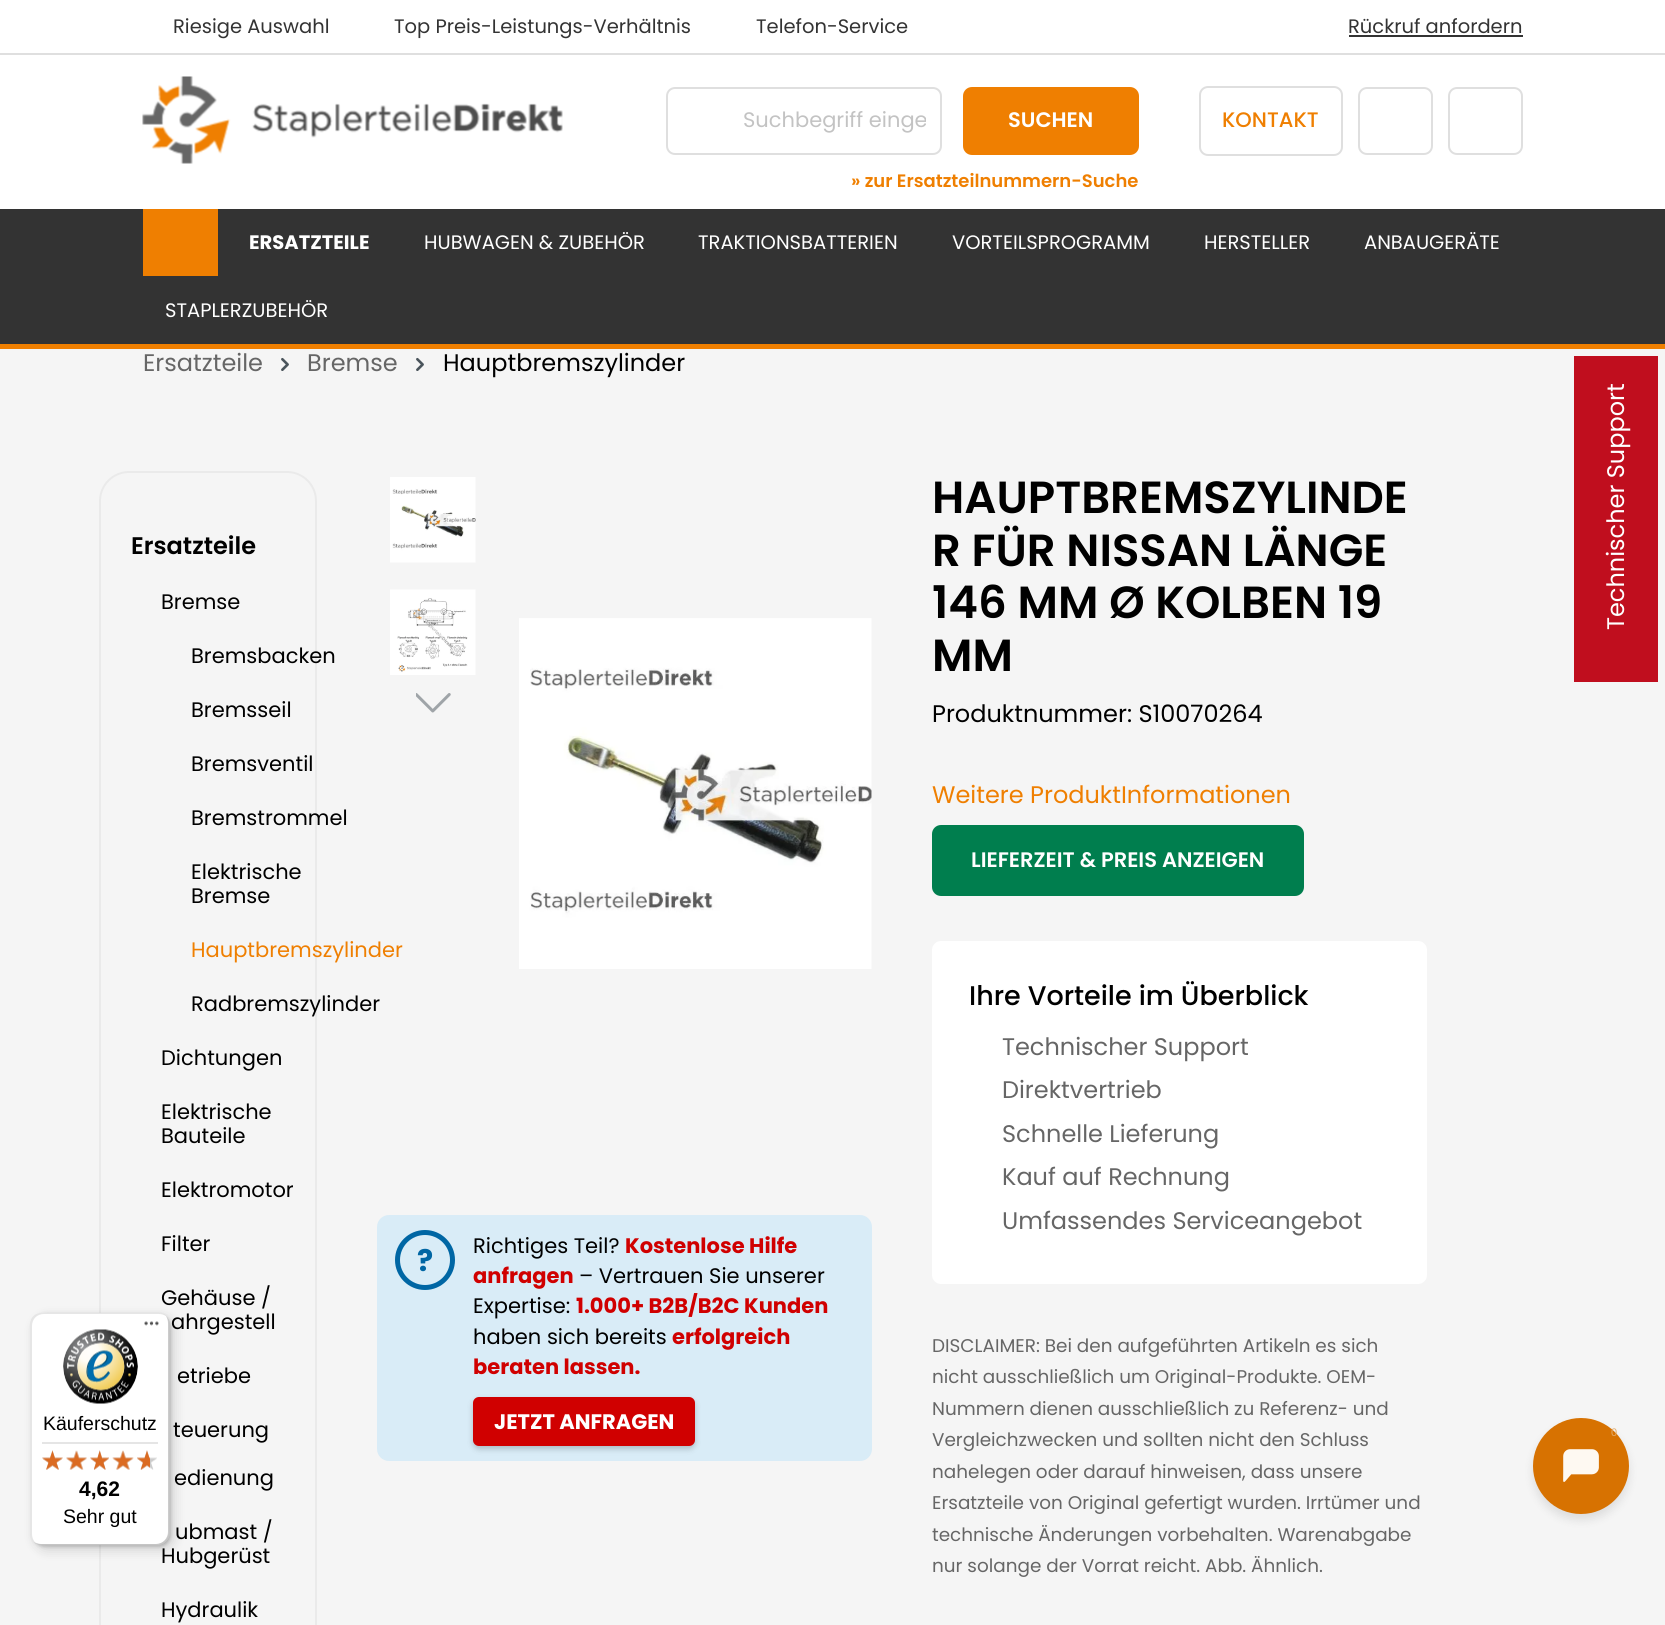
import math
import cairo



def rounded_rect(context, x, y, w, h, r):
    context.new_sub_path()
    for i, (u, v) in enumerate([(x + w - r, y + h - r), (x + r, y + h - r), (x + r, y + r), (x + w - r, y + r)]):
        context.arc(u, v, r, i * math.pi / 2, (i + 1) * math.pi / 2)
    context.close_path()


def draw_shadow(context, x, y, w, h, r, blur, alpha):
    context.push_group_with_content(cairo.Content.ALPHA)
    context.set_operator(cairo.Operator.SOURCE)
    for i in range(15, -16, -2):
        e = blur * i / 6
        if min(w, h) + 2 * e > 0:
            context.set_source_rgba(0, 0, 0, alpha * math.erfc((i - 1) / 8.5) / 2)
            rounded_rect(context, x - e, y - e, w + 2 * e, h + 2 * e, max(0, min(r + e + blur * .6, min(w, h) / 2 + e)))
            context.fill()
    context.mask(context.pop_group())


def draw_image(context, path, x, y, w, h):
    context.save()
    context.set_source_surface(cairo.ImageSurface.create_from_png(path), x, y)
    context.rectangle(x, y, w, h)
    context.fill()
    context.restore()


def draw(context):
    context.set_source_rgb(245 / 255, 245 / 255, 245 / 255)
    context.paint()
    context.set_source_rgb(1, 1, 1)
    context.rectangle(0, 0, 1665, 209)
    context.fill()
    context.set_source_rgb(223 / 255, 223 / 255, 223 / 255)
    context.rectangle(0, 53, 1665, 2)
    context.fill()
    context.set_source_rgb(51 / 255, 51 / 255, 51 / 255)
    context.rectangle(1349, 35, 174, 2)
    context.fill()
    draw_image(context, "images/1.png", 142, 76, 421, 88)
    rounded_rect(context, 667, 88, 274, 66, 8)
    context.set_source_rgb(223 / 255, 223 / 255, 223 / 255)
    context.stroke()
    context.set_source_rgb(239 / 255, 127 / 255, 1 / 255)
    rounded_rect(context, 963, 87, 176, 68, 9)
    context.fill()
    rounded_rect(context, 1200, 87, 142, 68, 8)
    context.set_source_rgb(223 / 255, 223 / 255, 223 / 255)
    context.stroke()
    rounded_rect(context, 1359, 88, 73, 66, 8)
    context.stroke()
    rounded_rect(context, 1449, 88, 73, 66, 8)
    context.stroke()
    context.set_source_rgb(192 / 255, 14 / 255, 30 / 255)
    context.rectangle(1574, 356, 84, 326)
    context.fill()
    context.set_source_rgb(51 / 255, 51 / 255, 51 / 255)
    context.rectangle(0, 209, 1665, 135)
    context.fill()
    context.set_source_rgb(239 / 255, 127 / 255, 1 / 255)
    context.rectangle(0, 344, 1665, 5)
    context.fill()
    context.rectangle(143, 209, 75, 67)
    context.fill()
    rounded_rect(context, 100, 472, 216, 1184, 29)
    context.set_source_rgb(234 / 255, 234 / 255, 234 / 255)
    context.stroke()
    context.set_source_rgb(0, 0, 0)
    draw_shadow(context, 35, 1317, 139, 233, 12, 6, 0.15)
    draw_shadow(context, 32, 1314, 139, 233, 12, 1.5, 0.15)
    context.set_source_rgb(1, 1, 1)
    rounded_rect(context, 30, 1313, 140, 232, 12)
    context.fill()
    context.set_source_rgba(0, 0, 0, 0.1)
    context.new_path()
    context.move_to(44, 1314)
    context.line_to(159, 1314)
    context.curve_to(162, 1314, 164, 1315, 166, 1316)
    context.curve_to(164, 1314, 161, 1313, 158, 1313)
    context.line_to(42, 1313)
    context.curve_to(35, 1313, 30, 1318, 30, 1325)
    context.line_to(30, 1533)
    context.curve_to(30, 1538, 33, 1542, 37, 1544)
    context.curve_to(34, 1542, 32, 1538, 32, 1534)
    context.line_to(32, 1326)
    context.curve_to(32, 1319, 37, 1314, 44, 1314)
    context.close_path()
    context.fill()
    context.set_source_rgba(0, 0, 0, 0.2)
    context.new_path()
    context.move_to(35, 1542)
    context.curve_to(37, 1544, 39, 1545, 42, 1545)
    context.line_to(158, 1545)
    context.curve_to(165, 1545, 170, 1540, 170, 1533)
    context.line_to(170, 1325)
    context.curve_to(170, 1321, 168, 1318, 166, 1316)
    context.curve_to(167, 1318, 168, 1320, 168, 1323)
    context.line_to(168, 1532)
    context.curve_to(168, 1538, 163, 1544, 156, 1544)
    context.line_to(40, 1544)
    context.curve_to(38, 1544, 36, 1543, 35, 1542)
    context.close_path()
    context.fill()
    context.set_source_rgba(50 / 255, 50 / 255, 50 / 255, 0.2)
    context.new_path()
    context.move_to(34, 1542)
    context.curve_to(36, 1544, 39, 1545, 42, 1545)
    context.line_to(158, 1545)
    context.curve_to(165, 1545, 170, 1540, 170, 1533)
    context.line_to(170, 1325)
    context.curve_to(170, 1321, 168, 1318, 166, 1316)
    context.curve_to(168, 1318, 169, 1321, 169, 1324)
    context.line_to(169, 1532)
    context.curve_to(169, 1539, 163, 1544, 157, 1544)
    context.line_to(41, 1544)
    context.curve_to(38, 1544, 36, 1543, 34, 1542)
    context.close_path()
    context.fill()
    context.set_source_rgba(1, 1, 1, 0.3)
    context.new_path()
    context.move_to(33, 1541)
    context.curve_to(35, 1543, 38, 1545, 42, 1545)
    context.line_to(158, 1545)
    context.curve_to(165, 1545, 170, 1540, 170, 1533)
    context.line_to(170, 1325)
    context.curve_to(170, 1321, 168, 1318, 166, 1316)
    context.curve_to(168, 1318, 169, 1321, 169, 1324)
    context.line_to(169, 1532)
    context.curve_to(169, 1539, 163, 1544, 157, 1544)
    context.line_to(41, 1544)
    context.curve_to(38, 1544, 35, 1543, 33, 1541)
    context.close_path()
    context.fill()
    draw_image(context, "images/2.png", 144, 1321, 15, 5)
    draw_image(context, "images/3.png", 63, 1329, 75, 75)
    context.set_source_rgb(229 / 255, 229 / 255, 229 / 255)
    context.rectangle(42, 1442, 116, 2)
    context.fill()
    draw_image(context, "images/4.png", 42, 1450, 21, 20)
    draw_image(context, "images/5.png", 66, 1451, 21, 19)
    draw_image(context, "images/6.png", 90, 1450, 19, 20)
    draw_image(context, "images/7.png", 113, 1451, 20, 19)
    draw_image(context, "images/8.png", 137, 1450, 20, 20)
    draw_image(context, "images/9.png", 42, 1450, 21, 20)
    draw_image(context, "images/10.png", 66, 1450, 21, 20)
    draw_image(context, "images/11.png", 90, 1450, 19, 20)
    draw_image(context, "images/12.png", 112, 1450, 22, 20)
    draw_image(context, "images/13.png", 137, 1450, 13, 20)
    draw_image(context, "images/14.png", 281, 357, 8, 14)
    draw_image(context, "images/14.png", 416, 357, 8, 14)
    draw_image(context, "images/15.png", 390, 477, 86, 86)
    draw_image(context, "images/16.png", 390, 589, 86, 86)
    draw_image(context, "images/17.png", 416, 693, 35, 20)
    draw_image(context, "images/18.png", 519, 618, 353, 351)
    context.set_source_rgb(217 / 255, 236 / 255, 247 / 255)
    rounded_rect(context, 377, 1215, 495, 246, 12)
    context.fill()
    context.arc(425, 1260, 27.5, 0, 2 * math.pi)
    context.set_source_rgb(0, 102 / 255, 164 / 255)
    context.set_line_width(5)
    context.stroke()
    context.set_source_rgb(0, 0, 0)
    draw_shadow(context, 473, 1400, 222, 49, 6, 3, 0.2)
    context.set_source_rgb(208 / 255, 0, 0)
    rounded_rect(context, 473, 1397, 222, 49, 6)
    context.fill()
    context.set_source_rgb(0, 126 / 255, 78 / 255)
    rounded_rect(context, 932, 825, 372, 71, 9)
    context.fill()
    context.set_source_rgb(1, 1, 1)
    rounded_rect(context, 932, 941, 495, 343, 9)
    context.fill()
    context.set_source_rgb(0, 0, 0)
    draw_shadow(context, 1533, 1424, 96, 96, 48, 4.5, 0.1)
    context.set_source_rgb(215 / 255, 114 / 255, 1 / 255)
    context.arc(1581, 1466, 48, 0, 2 * math.pi)
    context.fill()
    draw_image(context, "images/19.png", 1563, 1449, 36, 33)
    context.select_font_face("Poppins")
    context.set_font_size(19.5)
    context.set_source_rgb(51 / 255, 51 / 255, 51 / 255)
    context.move_to(173, 33)
    context.show_text("Riesige Auswahl")
    context.move_to(394, 33)
    context.show_text("Top Preis-Leistungs-Verhältnis")
    context.move_to(756, 33)
    context.show_text("Telefon-Service")
    context.move_to(1348, 33)
    context.show_text("Rückruf anfordern")
    context.save()
    context.rectangle(743, 105, 183, 32)
    context.clip()
    context.set_font_size(21)
    context.set_source_rgb(195 / 255, 195 / 255, 195 / 255)
    context.move_to(743, 127)
    context.show_text("Suchbegriff einge")
    context.restore()
    context.select_font_face("Poppins SemiBold")
    context.set_font_size(21)
    context.set_source_rgb(1, 1, 1)
    context.move_to(1008, 127)
    context.show_text("SUCHEN")
    context.set_font_size(18)
    context.set_source_rgb(239 / 255, 127 / 255, 1 / 255)
    context.move_to(851, 187)
    context.show_text("» zur Ersatzteilnummern-Suche")
    context.select_font_face("Poppins Medium")
    context.set_font_size(21)
    context.move_to(1222, 127)
    context.show_text("KONTAKT")
    context.select_font_face("Poppins")
    context.set_font_size(24)
    context.set_source_rgb(1, 1, 1)
    context.save()
    context.translate(1624, 630)
    context.rotate(-90 * math.pi / 180)
    context.move_to(0, 0)
    context.show_text("Technischer Support")
    context.restore()
    context.select_font_face("Poppins", cairo.FontSlant.NORMAL, cairo.FontWeight.BOLD)
    context.set_font_size(19.5)
    context.move_to(249, 249)
    context.show_text("ERSATZTEILE")
    context.select_font_face("Poppins")
    context.move_to(424, 249)
    context.show_text("HUBWAGEN & ZUBEHÖR")
    context.move_to(698, 249)
    context.show_text("TRAKTIONSBATTERIEN")
    context.move_to(952, 249)
    context.show_text("VORTEILSPROGRAMM")
    context.move_to(1204, 249)
    context.show_text("HERSTELLER")
    context.move_to(1364, 249)
    context.show_text("ANBAUGERÄTE")
    context.move_to(165, 317)
    context.show_text("STAPLERZUBEHÖR")
    context.select_font_face("Liberation Sans")
    context.set_source_rgb(0, 0, 0)
    context.move_to(43, 1430)
    context.show_text("Käuferschutz")
    context.select_font_face("Liberation Sans", cairo.FontSlant.NORMAL, cairo.FontWeight.BOLD)
    context.set_font_size(21)
    context.move_to(79, 1496)
    context.show_text("4,62")
    context.select_font_face("Liberation Sans")
    context.set_font_size(19.5)
    context.move_to(63, 1523)
    context.show_text("Sehr gut")
    context.select_font_face("Poppins")
    context.set_font_size(24)
    context.set_source_rgb(102 / 255, 102 / 255, 102 / 255)
    context.move_to(143, 371)
    context.show_text("Ersatzteile")
    context.move_to(307, 371)
    context.show_text("Bremse")
    context.set_source_rgb(0, 0, 0)
    context.move_to(443, 371)
    context.show_text("Hauptbremszylinder")
    context.select_font_face("Poppins SemiBold")
    context.move_to(131, 554)
    context.show_text("Ersatzteile")
    context.select_font_face("Poppins")
    context.set_font_size(21)
    context.move_to(161, 609)
    context.show_text("Bremse")
    context.move_to(191, 663)
    context.show_text("Bremsbacken")
    context.move_to(191, 717)
    context.show_text("Bremsseil")
    context.move_to(191, 771)
    context.show_text("Bremsventil")
    context.move_to(191, 825)
    context.show_text("Bremstrommel")
    context.move_to(191, 879)
    context.show_text("Elektrische")
    context.move_to(191, 903)
    context.show_text("Bremse")
    context.set_source_rgb(239 / 255, 127 / 255, 1 / 255)
    context.move_to(191, 957)
    context.show_text("Hauptbremszylinder")
    context.set_source_rgb(0, 0, 0)
    context.move_to(191, 1011)
    context.show_text("Radbremszylinder")
    context.move_to(161, 1065)
    context.show_text("Dichtungen")
    context.move_to(161, 1119)
    context.show_text("Elektrische")
    context.move_to(161, 1143)
    context.show_text("Bauteile")
    context.move_to(161, 1197)
    context.show_text("Elektromotor")
    context.move_to(161, 1251)
    context.show_text("Filter")
    context.move_to(161, 1305)
    context.show_text("Gehäuse /")
    context.move_to(171, 1329)
    context.show_text("ahrgestell")
    context.move_to(177, 1383)
    context.show_text("etriebe")
    context.move_to(173, 1437)
    context.show_text("teuerung")
    context.move_to(174, 1485)
    context.show_text("edienung")
    context.move_to(175, 1539)
    context.show_text("ubmast /")
    context.move_to(161, 1563)
    context.show_text("Hubgerüst")
    context.move_to(161, 1617)
    context.show_text("Hydraulik")
    context.select_font_face("Poppins", cairo.FontSlant.NORMAL, cairo.FontWeight.BOLD)
    context.set_font_size(30)
    context.set_source_rgb(0, 102 / 255, 164 / 255)
    context.move_to(417, 1271)
    context.show_text("?")
    context.select_font_face("Poppins")
    context.set_font_size(21)
    context.set_source_rgb(0, 0, 0)
    context.move_to(473, 1253)
    context.show_text("Richtiges Teil?")
    context.select_font_face("Poppins", cairo.FontSlant.NORMAL, cairo.FontWeight.BOLD)
    context.set_source_rgb(208 / 255, 0, 0)
    context.move_to(625, 1253)
    context.show_text("Kostenlose Hilfe")
    context.move_to(473, 1283)
    context.show_text("anfragen")
    context.select_font_face("Poppins")
    context.set_source_rgb(0, 0, 0)
    context.move_to(579, 1283)
    context.show_text("– Vertrauen Sie unserer")
    context.move_to(473, 1313)
    context.show_text("Expertise:")
    context.select_font_face("Poppins", cairo.FontSlant.NORMAL, cairo.FontWeight.BOLD)
    context.set_source_rgb(208 / 255, 0, 0)
    context.move_to(576, 1313)
    context.show_text("1.000+ B2B/B2C Kunden")
    context.select_font_face("Poppins")
    context.set_source_rgb(0, 0, 0)
    context.move_to(473, 1344)
    context.show_text("haben sich bereits")
    context.select_font_face("Poppins", cairo.FontSlant.NORMAL, cairo.FontWeight.BOLD)
    context.set_source_rgb(208 / 255, 0, 0)
    context.move_to(672, 1344)
    context.show_text("erfolgreich")
    context.move_to(473, 1374)
    context.show_text("beraten lassen.")
    context.set_source_rgb(1, 1, 1)
    context.move_to(494, 1429)
    context.show_text("JETZT ANFRAGEN")
    context.select_font_face("Poppins SemiBold")
    context.set_font_size(45)
    context.set_source_rgb(0, 0, 0)
    context.move_to(932, 513)
    context.show_text("HAUPTBREMSZYLINDE")
    context.move_to(932, 566)
    context.show_text("R FÜR NISSAN LÄNGE")
    context.move_to(932, 618)
    context.show_text("146 MM Ø KOLBEN 19")
    context.move_to(932, 671)
    context.show_text("MM")
    context.select_font_face("Poppins")
    context.set_font_size(24)
    context.move_to(932, 722)
    context.show_text("Produktnummer: S10070264")
    context.set_source_rgb(239 / 255, 127 / 255, 1 / 255)
    context.move_to(932, 803)
    context.show_text("Weitere ProduktInformationen")
    context.select_font_face("Poppins SemiBold")
    context.set_font_size(21)
    context.set_source_rgb(1, 1, 1)
    context.move_to(971, 867)
    context.show_text("LIEFERZEIT & PREIS ANZEIGEN")
    context.select_font_face("Poppins Medium")
    context.set_font_size(27)
    context.set_source_rgb(0, 0, 0)
    context.move_to(969, 1005)
    context.show_text("Ihre Vorteile im Überblick")
    context.select_font_face("Poppins")
    context.set_font_size(24)
    context.set_source_rgb(102 / 255, 102 / 255, 102 / 255)
    context.move_to(1002, 1055)
    context.show_text("Technischer Support")
    context.move_to(1002, 1098)
    context.show_text("Direktvertrieb")
    context.move_to(1002, 1142)
    context.show_text("Schnelle Lieferung")
    context.move_to(1002, 1185)
    context.show_text("Kauf auf Rechnung")
    context.move_to(1002, 1229)
    context.show_text("Umfassendes Serviceangebot")
    context.set_font_size(18.4)
    context.move_to(932, 1352)
    context.show_text("DISCLAIMER: Bei den aufgeführten Artikeln es sich")
    context.move_to(932, 1383)
    context.show_text("nicht ausschließlich um Original-Produkte. OEM-")
    context.move_to(932, 1415)
    context.show_text("Nummern dienen ausschließlich zu Referenz- und")
    context.move_to(932, 1446)
    context.show_text("Vergleichzwecken und sollten nicht den Schluss")
    context.move_to(932, 1478)
    context.show_text("nahelegen oder darauf hinweisen, dass unsere")
    context.move_to(932, 1509)
    context.show_text("Ersatzteile von Original gefertigt wurden. Irrtümer und")
    context.move_to(932, 1541)
    context.show_text("technische Änderungen vorbehalten. Warenabgabe")
    context.move_to(932, 1572)
    context.show_text("nur solange der Vorrat reicht. Abb. Ähnlich.")
    context.select_font_face("Liberation Sans")
    context.set_font_size(11)
    context.set_source_rgb(227 / 255, 171 / 255, 107 / 255)
    context.move_to(1611, 1436)
    context.show_text("0")


surface = cairo.ImageSurface(cairo.Format.RGB24, 1665, 1625)
context = cairo.Context(surface)
options = cairo.FontOptions()
options.set_hint_metrics(cairo.HintMetrics.OFF)
options.set_hint_style(cairo.HintStyle.NONE)
context.set_font_options(options)
context.set_miter_limit(4)
draw(context)
surface.write_to_png("out.png")
